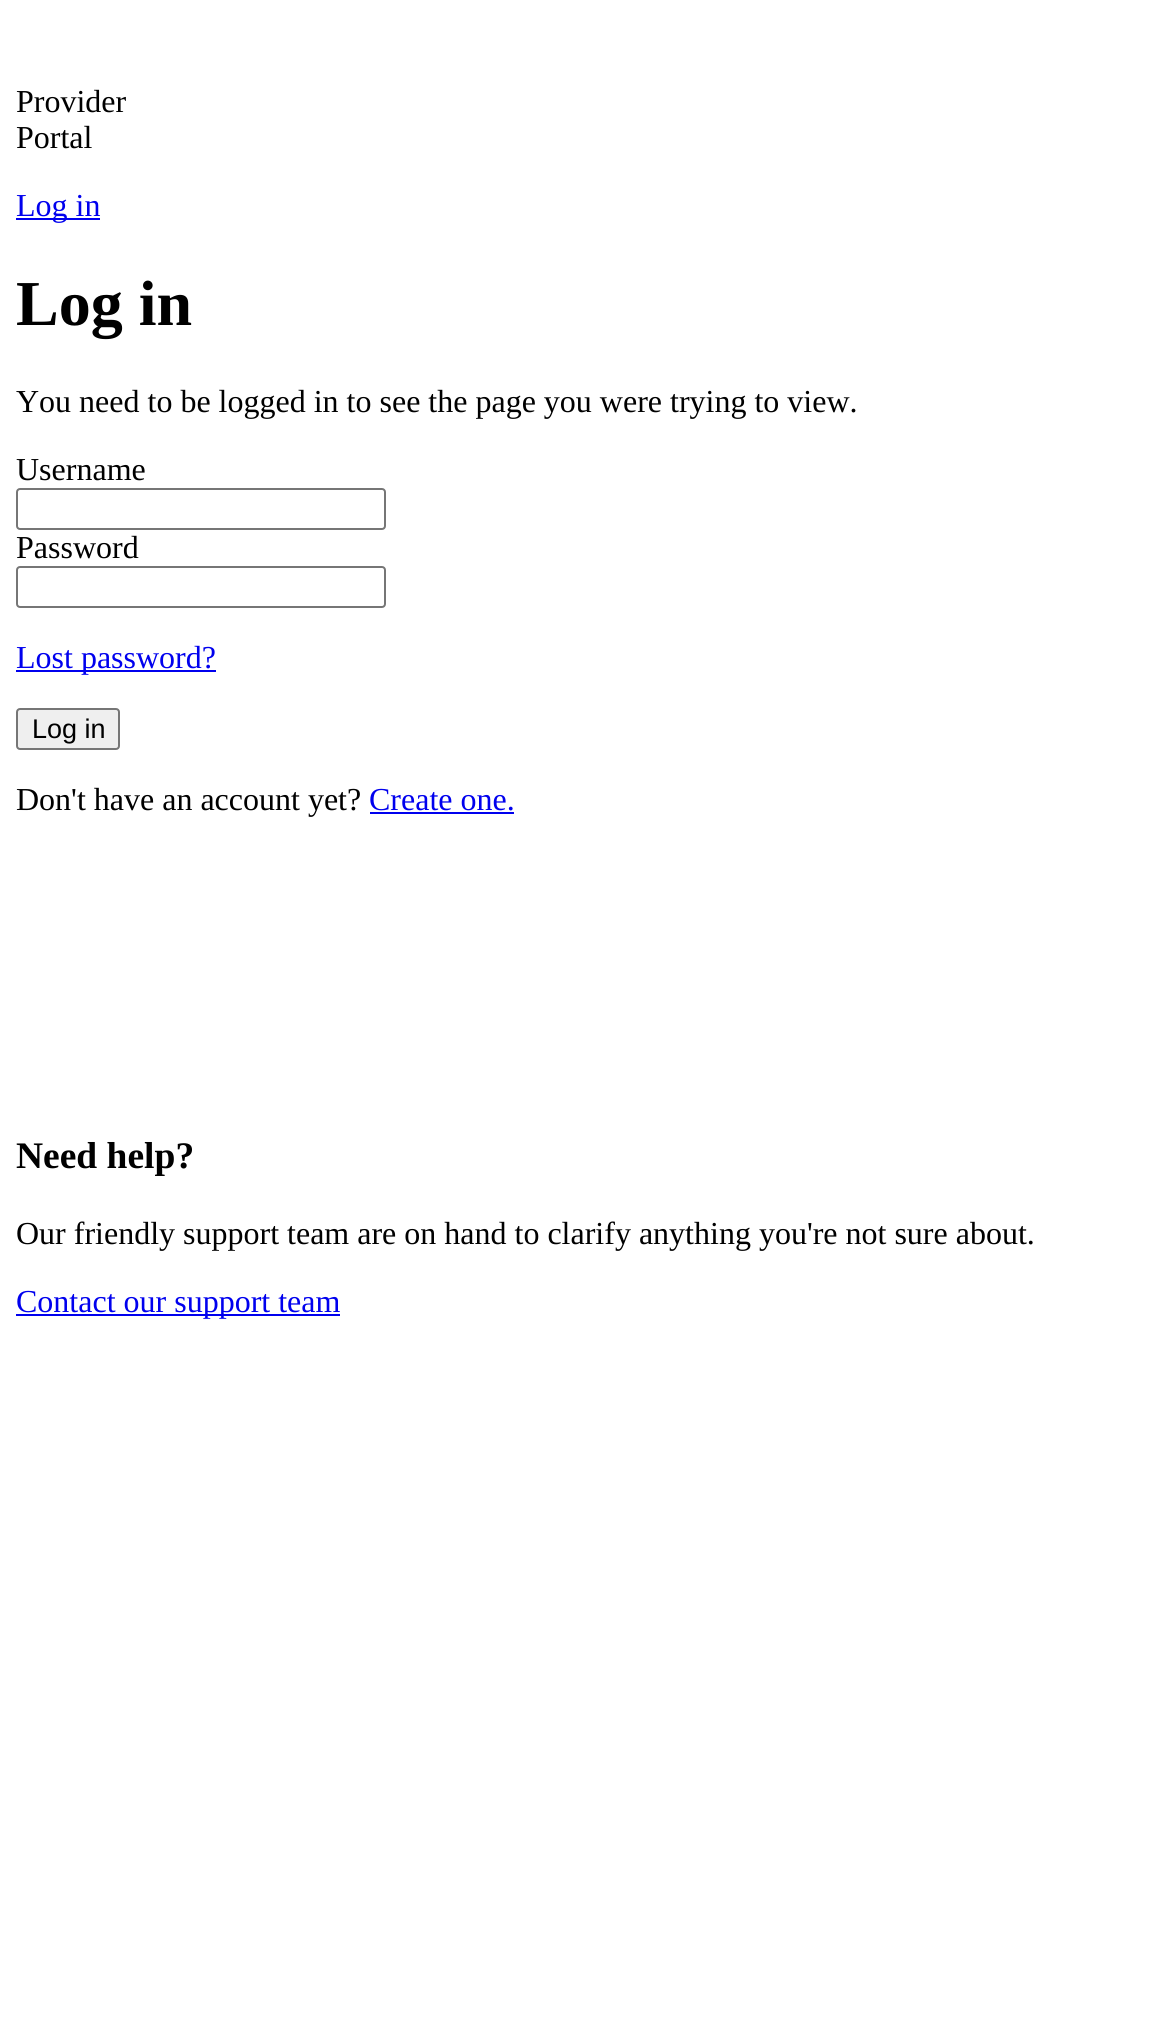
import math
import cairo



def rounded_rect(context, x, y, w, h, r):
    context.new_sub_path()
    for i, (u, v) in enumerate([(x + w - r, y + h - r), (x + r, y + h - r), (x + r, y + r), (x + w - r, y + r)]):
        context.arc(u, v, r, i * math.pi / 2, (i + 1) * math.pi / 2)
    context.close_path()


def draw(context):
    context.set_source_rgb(1, 1, 1)
    context.paint()
    context.set_source_rgb(0, 0, 238 / 255)
    context.rectangle(16, 218, 84, 2)
    context.fill()
    rounded_rect(context, 17, 489, 368, 40, 3)
    context.set_source_rgb(118 / 255, 118 / 255, 118 / 255)
    context.stroke()
    rounded_rect(context, 17, 567, 368, 40, 3)
    context.stroke()
    context.set_source_rgb(0, 0, 238 / 255)
    context.rectangle(16, 670, 200, 2)
    context.fill()
    context.set_source_rgb(239 / 255, 239 / 255, 239 / 255)
    rounded_rect(context, 17, 709, 102, 40, 3)
    context.fill_preserve()
    context.set_source_rgb(118 / 255, 118 / 255, 118 / 255)
    context.stroke()
    context.set_source_rgb(0, 0, 238 / 255)
    context.rectangle(370, 812, 144, 2)
    context.fill()
    context.rectangle(16, 1314, 324, 2)
    context.fill()
    context.select_font_face("Liberation Serif")
    context.set_font_size(32)
    context.set_source_rgb(0, 0, 0)
    context.move_to(16, 112)
    context.show_text("Provider")
    context.move_to(16, 148)
    context.show_text("Portal")
    context.set_source_rgb(0, 0, 238 / 255)
    context.move_to(16, 216)
    context.show_text("Log in")
    context.select_font_face("Liberation Serif", cairo.FontSlant.NORMAL, cairo.FontWeight.BOLD)
    context.set_font_size(64)
    context.set_source_rgb(0, 0, 0)
    context.move_to(16, 325)
    context.show_text("Log in")
    context.select_font_face("Liberation Serif")
    context.set_font_size(32)
    context.move_to(16, 412)
    context.show_text("You need to be logged in to see the page you were trying to view.")
    context.move_to(16, 480)
    context.show_text("Username")
    context.move_to(16, 558)
    context.show_text("Password")
    context.set_source_rgb(0, 0, 238 / 255)
    context.move_to(16, 668)
    context.show_text("Lost password?")
    context.select_font_face("Liberation Sans")
    context.set_font_size(27)
    context.set_source_rgb(0, 0, 0)
    context.move_to(32, 738)
    context.show_text("Log in")
    context.select_font_face("Liberation Serif")
    context.set_font_size(32)
    context.move_to(16, 810)
    context.show_text("Don't have an account yet?")
    context.set_source_rgb(0, 0, 238 / 255)
    context.move_to(369, 810)
    context.show_text("Create one.")
    context.select_font_face("Liberation Serif", cairo.FontSlant.NORMAL, cairo.FontWeight.BOLD)
    context.set_font_size(37.5)
    context.set_source_rgb(0, 0, 0)
    context.move_to(16, 1168)
    context.show_text("Need help?")
    context.select_font_face("Liberation Serif")
    context.set_font_size(32)
    context.move_to(16, 1244)
    context.show_text("Our friendly support team are on hand to clarify anything you're not sure about.")
    context.set_source_rgb(0, 0, 238 / 255)
    context.move_to(16, 1312)
    context.show_text("Contact our support team")


surface = cairo.ImageSurface(cairo.Format.RGB24, 1159, 2035)
context = cairo.Context(surface)
options = cairo.FontOptions()
options.set_hint_metrics(cairo.HintMetrics.OFF)
options.set_hint_style(cairo.HintStyle.NONE)
context.set_font_options(options)
context.set_miter_limit(4)
draw(context)
surface.write_to_png("out.png")
